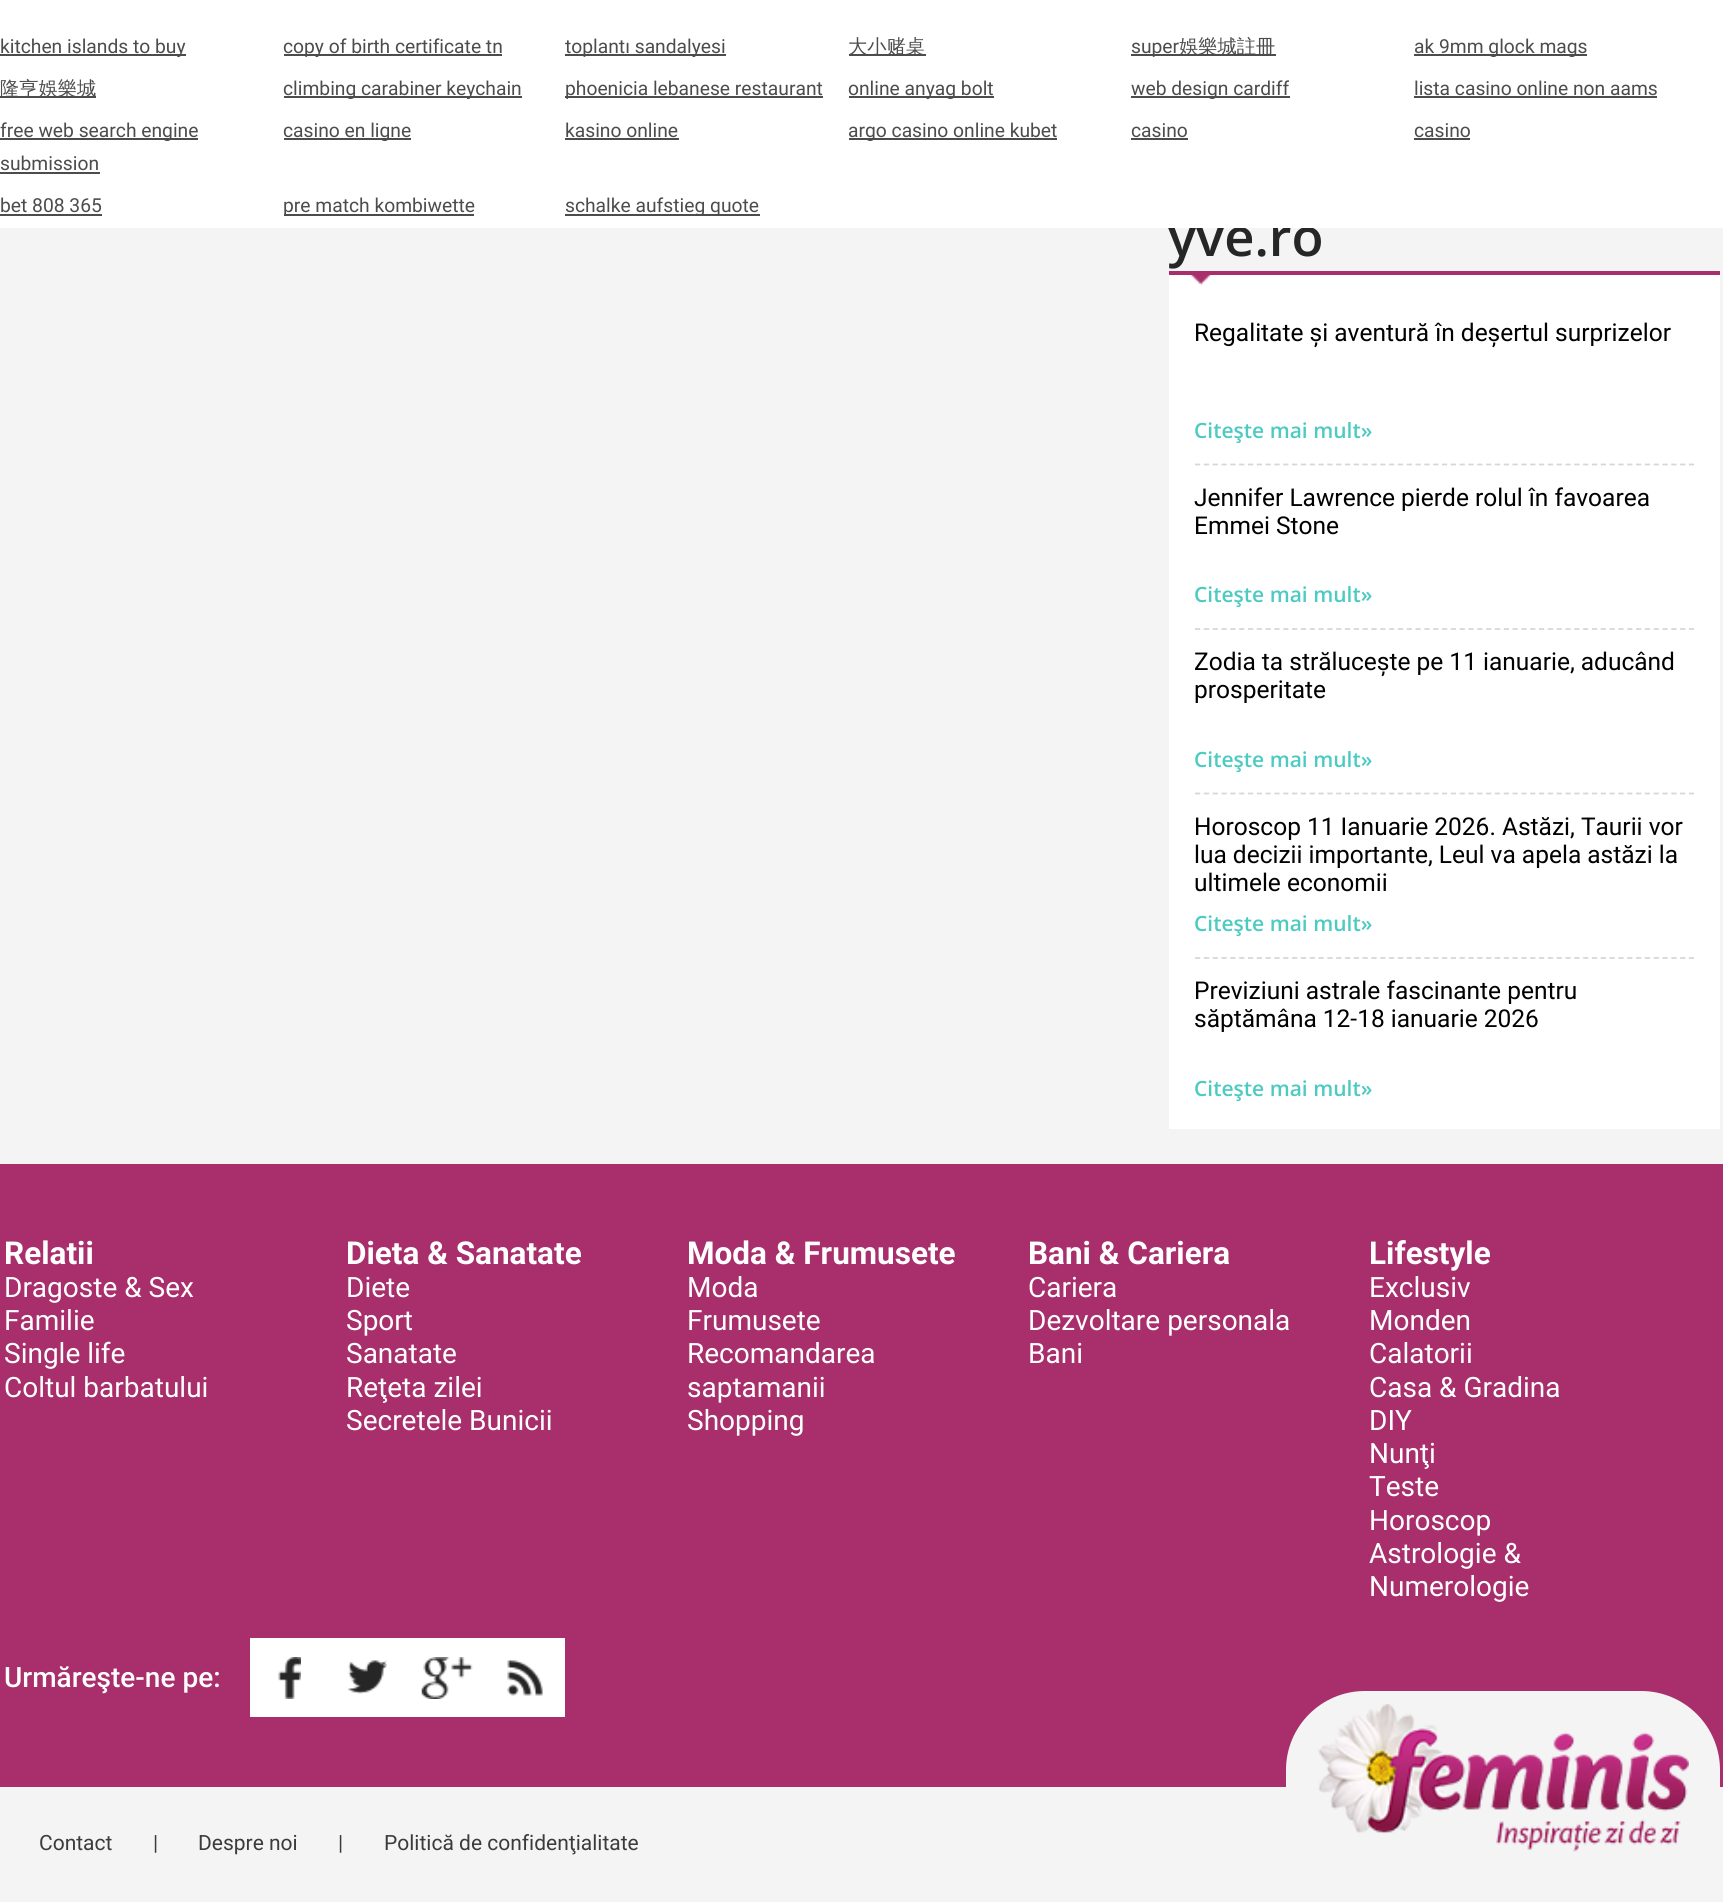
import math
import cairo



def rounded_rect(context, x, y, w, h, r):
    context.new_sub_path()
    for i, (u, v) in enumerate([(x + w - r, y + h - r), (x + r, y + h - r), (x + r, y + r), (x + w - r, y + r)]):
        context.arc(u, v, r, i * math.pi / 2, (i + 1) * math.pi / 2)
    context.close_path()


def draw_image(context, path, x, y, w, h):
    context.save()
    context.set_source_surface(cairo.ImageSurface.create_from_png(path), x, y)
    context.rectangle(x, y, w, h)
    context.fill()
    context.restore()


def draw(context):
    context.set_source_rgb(244 / 255, 244 / 255, 244 / 255)
    context.paint()
    context.set_source_rgb(168 / 255, 47 / 255, 107 / 255)
    context.rectangle(1169, 271, 551, 4)
    context.fill()
    context.set_source_rgb(1, 1, 1)
    context.rectangle(1169, 275, 551, 854)
    context.fill()
    draw_image(context, "images/1.png", 1190, 275, 21, 11)
    context.new_path()
    context.move_to(1195, 464.5)
    context.line_to(1694, 464.5)
    context.set_source_rgb(215 / 255, 215 / 255, 215 / 255)
    context.set_line_width(1.8)
    context.set_dash([5.25, 3.57])
    context.stroke()
    context.new_path()
    context.move_to(1195, 629)
    context.line_to(1694, 629)
    context.stroke()
    context.new_path()
    context.move_to(1195, 793.5)
    context.line_to(1694, 793.5)
    context.stroke()
    context.new_path()
    context.move_to(1195, 958)
    context.line_to(1694, 958)
    context.stroke()
    context.set_source_rgb(168 / 255, 47 / 255, 107 / 255)
    context.rectangle(0, 1164, 1723, 623)
    context.fill()
    context.set_source_rgb(1, 1, 1)
    context.rectangle(250, 1638, 315, 79)
    context.fill()
    draw_image(context, "images/2.png", 507, 1660, 36, 36)
    draw_image(context, "images/3.png", 278, 1657, 23, 42)
    draw_image(context, "images/4.png", 348, 1660, 39, 34)
    draw_image(context, "images/5.png", 421, 1657, 52, 42)
    context.set_source_rgb(244 / 255, 244 / 255, 244 / 255)
    rounded_rect(context, 1286, 1691, 434, 175, 79)
    context.fill()
    draw_image(context, "images/6.png", 1318, 1704, 371, 148)
    context.select_font_face("Open Sans SemiBold")
    context.set_font_size(52.5)
    context.set_source_rgb(38 / 255, 38 / 255, 38 / 255)
    context.move_to(1168, 256)
    context.show_text("yve.ro")
    context.set_source_rgb(1, 1, 1)
    context.rectangle(0, 0, 1723, 228)
    context.fill()
    context.set_source_rgb(76 / 255, 76 / 255, 78 / 255)
    context.rectangle(565, 214, 195, 2)
    context.fill()
    context.select_font_face("Roboto")
    context.set_font_size(19.25)
    context.move_to(565, 212)
    context.show_text("schalke aufstieg quote")
    context.rectangle(284, 214, 190, 2)
    context.fill()
    context.move_to(283, 212)
    context.show_text("pre match kombiwette")
    context.move_to(0, 212)
    context.show_text("bet 808 365")
    context.rectangle(0, 214, 102, 2)
    context.fill()
    context.move_to(1414, 137)
    context.show_text("casino")
    context.rectangle(1414, 138, 56, 2)
    context.fill()
    context.move_to(1131, 137)
    context.show_text("casino")
    context.rectangle(1131, 138, 57, 2)
    context.fill()
    context.rectangle(849, 138, 208, 2)
    context.fill()
    context.move_to(848, 137)
    context.show_text("argo casino online kubet")
    context.move_to(565, 137)
    context.show_text("kasino online")
    context.rectangle(565, 138, 114, 2)
    context.fill()
    context.rectangle(284, 138, 127, 2)
    context.fill()
    context.move_to(283, 137)
    context.show_text("casino en ligne")
    context.move_to(0, 170)
    context.show_text("submission")
    context.rectangle(0, 172, 100, 2)
    context.fill()
    context.rectangle(0, 138, 198, 2)
    context.fill()
    context.move_to(0, 137)
    context.show_text("free web search engine")
    context.move_to(1414, 95)
    context.show_text("lista casino online non aams")
    context.rectangle(1414, 96, 243, 2)
    context.fill()
    context.rectangle(1131, 96, 159, 2)
    context.fill()
    context.move_to(1131, 95)
    context.show_text("web design cardiff")
    context.rectangle(849, 96, 145, 2)
    context.fill()
    context.move_to(848, 95)
    context.show_text("online anyag bolt")
    context.rectangle(565, 96, 258, 2)
    context.fill()
    context.move_to(565, 95)
    context.show_text("phoenicia lebanese restaurant")
    context.rectangle(284, 96, 238, 2)
    context.fill()
    context.move_to(283, 95)
    context.show_text("climbing carabiner keychain")
    context.rectangle(0, 96, 96, 2)
    context.fill()
    context.select_font_face("WenQuanYi Zen Hei Medium")
    context.move_to(0, 95)
    context.show_text("隆亨娛樂城")
    context.rectangle(1414, 54, 173, 2)
    context.fill()
    context.select_font_face("Roboto")
    context.move_to(1414, 53)
    context.show_text("ak 9mm glock mags")
    context.rectangle(1131, 54, 145, 2)
    context.fill()
    context.select_font_face("WenQuanYi Zen Hei Medium")
    context.move_to(1179, 53)
    context.show_text("娛樂城註冊")
    context.select_font_face("Roboto")
    context.move_to(1131, 53)
    context.show_text("super")
    context.rectangle(849, 54, 77, 2)
    context.fill()
    context.select_font_face("WenQuanYi Zen Hei Medium")
    context.move_to(848, 53)
    context.show_text("大小赌桌")
    context.rectangle(565, 54, 161, 2)
    context.fill()
    context.select_font_face("Roboto")
    context.move_to(565, 53)
    context.show_text("toplantı sandalyesi")
    context.rectangle(284, 54, 218, 2)
    context.fill()
    context.move_to(283, 53)
    context.show_text("copy of birth certificate tn")
    context.rectangle(0, 54, 186, 2)
    context.fill()
    context.move_to(0, 53)
    context.show_text("kitchen islands to buy")
    context.set_font_size(24.5)
    context.set_source_rgb(0, 0, 0)
    context.move_to(1194, 341)
    context.show_text("Regalitate și aventură în deșertul surprizelor")
    context.select_font_face("Open Sans SemiBold")
    context.set_font_size(21)
    context.set_source_rgb(77 / 255, 202 / 255, 194 / 255)
    context.move_to(1194, 438)
    context.show_text("Citeşte mai mult»")
    context.select_font_face("Roboto")
    context.set_font_size(24.5)
    context.set_source_rgb(0, 0, 0)
    context.move_to(1194, 506)
    context.show_text("Jennifer Lawrence pierde rolul în favoarea")
    context.move_to(1194, 534)
    context.show_text("Emmei Stone")
    context.select_font_face("Open Sans SemiBold")
    context.set_font_size(21)
    context.set_source_rgb(77 / 255, 202 / 255, 194 / 255)
    context.move_to(1194, 602)
    context.show_text("Citeşte mai mult»")
    context.select_font_face("Roboto")
    context.set_font_size(24.5)
    context.set_source_rgb(0, 0, 0)
    context.move_to(1194, 670)
    context.show_text("Zodia ta strălucește pe 11 ianuarie, aducând")
    context.move_to(1194, 698)
    context.show_text("prosperitate")
    context.select_font_face("Open Sans SemiBold")
    context.set_font_size(21)
    context.set_source_rgb(77 / 255, 202 / 255, 194 / 255)
    context.move_to(1194, 767)
    context.show_text("Citeşte mai mult»")
    context.select_font_face("Roboto")
    context.set_font_size(24.5)
    context.set_source_rgb(0, 0, 0)
    context.move_to(1194, 835)
    context.show_text("Horoscop 11 Ianuarie 2026. Astăzi, Taurii vor")
    context.move_to(1194, 863)
    context.show_text("lua decizii importante, Leul va apela astăzi la")
    context.move_to(1194, 891)
    context.show_text("ultimele economii")
    context.select_font_face("Open Sans SemiBold")
    context.set_font_size(21)
    context.set_source_rgb(77 / 255, 202 / 255, 194 / 255)
    context.move_to(1194, 931)
    context.show_text("Citeşte mai mult»")
    context.select_font_face("Roboto")
    context.set_font_size(24.5)
    context.set_source_rgb(0, 0, 0)
    context.move_to(1194, 999)
    context.show_text("Previziuni astrale fascinante pentru")
    context.move_to(1194, 1027)
    context.show_text("săptămâna 12-18 ianuarie 2026")
    context.select_font_face("Open Sans SemiBold")
    context.set_font_size(21)
    context.set_source_rgb(77 / 255, 202 / 255, 194 / 255)
    context.move_to(1194, 1096)
    context.show_text("Citeşte mai mult»")
    context.select_font_face("Roboto", cairo.FontSlant.NORMAL, cairo.FontWeight.BOLD)
    context.set_font_size(31.5)
    context.set_source_rgb(1, 1, 1)
    context.move_to(4, 1264)
    context.show_text("Relatii")
    context.select_font_face("Roboto")
    context.set_font_size(28)
    context.move_to(4, 1297)
    context.show_text("Dragoste & Sex")
    context.move_to(4, 1330)
    context.show_text("Familie")
    context.move_to(4, 1363)
    context.show_text("Single life")
    context.move_to(4, 1397)
    context.show_text("Coltul barbatului")
    context.select_font_face("Roboto", cairo.FontSlant.NORMAL, cairo.FontWeight.BOLD)
    context.set_font_size(31.5)
    context.move_to(346, 1264)
    context.show_text("Dieta & Sanatate")
    context.select_font_face("Roboto")
    context.set_font_size(28)
    context.move_to(346, 1297)
    context.show_text("Diete")
    context.move_to(346, 1330)
    context.show_text("Sport")
    context.move_to(346, 1363)
    context.show_text("Sanatate")
    context.move_to(346, 1397)
    context.show_text("Reţeta zilei")
    context.move_to(346, 1430)
    context.show_text("Secretele Bunicii")
    context.select_font_face("Roboto", cairo.FontSlant.NORMAL, cairo.FontWeight.BOLD)
    context.set_font_size(31.5)
    context.move_to(687, 1264)
    context.show_text("Moda & Frumusete")
    context.select_font_face("Roboto")
    context.set_font_size(28)
    context.move_to(687, 1297)
    context.show_text("Moda")
    context.move_to(687, 1330)
    context.show_text("Frumusete")
    context.move_to(687, 1363)
    context.show_text("Recomandarea")
    context.move_to(687, 1397)
    context.show_text("saptamanii")
    context.move_to(687, 1430)
    context.show_text("Shopping")
    context.select_font_face("Roboto", cairo.FontSlant.NORMAL, cairo.FontWeight.BOLD)
    context.set_font_size(31.5)
    context.move_to(1028, 1264)
    context.show_text("Bani & Cariera")
    context.select_font_face("Roboto")
    context.set_font_size(28)
    context.move_to(1028, 1297)
    context.show_text("Cariera")
    context.move_to(1028, 1330)
    context.show_text("Dezvoltare personala")
    context.move_to(1028, 1363)
    context.show_text("Bani")
    context.select_font_face("Roboto", cairo.FontSlant.NORMAL, cairo.FontWeight.BOLD)
    context.set_font_size(31.5)
    context.move_to(1369, 1264)
    context.show_text("Lifestyle")
    context.select_font_face("Roboto")
    context.set_font_size(28)
    context.move_to(1369, 1297)
    context.show_text("Exclusiv")
    context.move_to(1369, 1330)
    context.show_text("Monden")
    context.move_to(1369, 1363)
    context.show_text("Calatorii")
    context.move_to(1369, 1397)
    context.show_text("Casa & Gradina")
    context.move_to(1369, 1430)
    context.show_text("DIY")
    context.move_to(1369, 1463)
    context.show_text("Nunţi")
    context.move_to(1369, 1496)
    context.show_text("Teste")
    context.move_to(1369, 1530)
    context.show_text("Horoscop")
    context.move_to(1369, 1563)
    context.show_text("Astrologie &")
    context.move_to(1369, 1596)
    context.show_text("Numerologie")
    context.select_font_face("Roboto Medium")
    context.move_to(4, 1687)
    context.show_text("Urmăreşte-ne pe:")
    context.select_font_face("Roboto")
    context.set_font_size(21)
    context.set_source_rgb(59 / 255, 59 / 255, 59 / 255)
    context.move_to(39, 1850)
    context.show_text("Contact")
    context.move_to(153, 1850)
    context.show_text("|")
    context.move_to(198, 1850)
    context.show_text("Despre noi")
    context.move_to(338, 1850)
    context.show_text("|")
    context.move_to(384, 1850)
    context.show_text("Politică de confidenţialitate")


surface = cairo.ImageSurface(cairo.Format.RGB24, 1723, 1902)
context = cairo.Context(surface)
options = cairo.FontOptions()
options.set_hint_metrics(cairo.HintMetrics.OFF)
options.set_hint_style(cairo.HintStyle.NONE)
context.set_font_options(options)
context.set_miter_limit(4)
draw(context)
surface.write_to_png("out.png")
